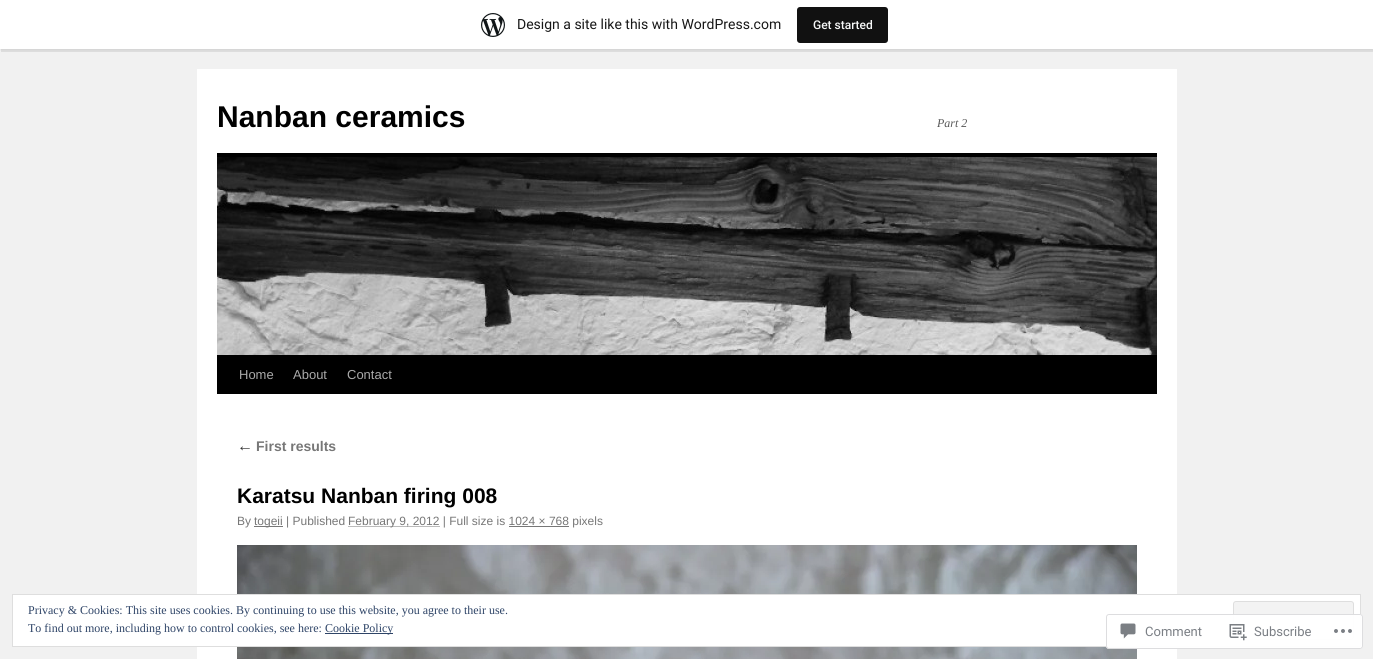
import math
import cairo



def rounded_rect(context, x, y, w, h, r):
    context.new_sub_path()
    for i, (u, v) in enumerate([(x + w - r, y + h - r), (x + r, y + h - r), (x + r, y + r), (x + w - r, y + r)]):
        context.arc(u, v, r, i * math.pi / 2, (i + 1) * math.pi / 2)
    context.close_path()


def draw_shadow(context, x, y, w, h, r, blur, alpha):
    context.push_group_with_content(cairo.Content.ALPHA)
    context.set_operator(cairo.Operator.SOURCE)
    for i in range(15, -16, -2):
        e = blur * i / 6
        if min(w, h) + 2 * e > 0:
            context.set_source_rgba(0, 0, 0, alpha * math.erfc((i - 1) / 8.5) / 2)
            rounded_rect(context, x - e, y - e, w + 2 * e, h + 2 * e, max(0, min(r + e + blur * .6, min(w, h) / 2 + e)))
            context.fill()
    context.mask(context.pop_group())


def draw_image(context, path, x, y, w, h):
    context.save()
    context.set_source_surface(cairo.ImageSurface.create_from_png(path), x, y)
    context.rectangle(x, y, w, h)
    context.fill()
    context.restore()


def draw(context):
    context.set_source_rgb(241 / 255, 241 / 255, 241 / 255)
    context.paint()
    context.set_source_rgb(0, 0, 0)
    draw_shadow(context, 0, 1, 1373, 49, 0, 1, 0.05)
    context.set_source_rgba(0, 0, 0, 0.08)
    context.new_path()
    context.move_to(1, 49)
    context.line_to(1, 52)
    context.line_to(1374, 52)
    context.line_to(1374, 3)
    context.line_to(1373, 3)
    context.line_to(1373, 49)
    context.close_path()
    context.fill()
    context.set_source_rgb(1, 1, 1)
    context.rectangle(0, 0, 1373, 49)
    context.fill()
    draw_image(context, "images/1.png", 481, 13, 24, 24)
    context.set_source_rgb(17 / 255, 17 / 255, 17 / 255)
    rounded_rect(context, 797, 7, 91, 36, 3)
    context.fill()
    context.set_source_rgb(1, 1, 1)
    context.rectangle(197, 69, 980, 590)
    context.fill()
    context.set_source_rgb(0, 0, 0)
    context.rectangle(217, 153, 940, 4)
    context.fill()
    context.rectangle(217, 355, 940, 39)
    context.fill()
    draw_image(context, "images/2.png", 217, 157, 940, 198)
    context.set_source_rgb(119 / 255, 119 / 255, 119 / 255)
    context.rectangle(254, 526, 29, 1)
    context.fill()
    context.new_path()
    context.move_to(348.5, 526.5)
    context.line_to(440, 526.5)
    context.set_line_width(1)
    context.set_dash([1, 1])
    context.stroke()
    context.rectangle(509, 526, 60, 1)
    context.fill()
    draw_image(context, "images/3.png", 237, 545, 900, 114)
    context.set_source_rgb(1, 1, 1)
    context.rectangle(12.5, 594.5, 1348, 52)
    context.fill_preserve()
    context.set_source_rgb(222 / 255, 222 / 255, 222 / 255)
    context.set_dash([])
    context.stroke()
    context.set_source_rgb(243 / 255, 243 / 255, 243 / 255)
    rounded_rect(context, 1233.5, 601.5, 120, 38, 2.5)
    context.fill_preserve()
    context.set_source_rgb(222 / 255, 222 / 255, 222 / 255)
    context.stroke()
    context.set_source_rgb(46 / 255, 68 / 255, 103 / 255)
    context.rectangle(325, 633, 68, 1)
    context.fill()
    context.set_source_rgba(1, 1, 1, 0.98)
    rounded_rect(context, 1106, 614, 257, 35, 3)
    context.fill()
    rounded_rect(context, 1106.5, 614.5, 256, 34, 2.5)
    context.set_source_rgba(220 / 255, 220 / 255, 222 / 255, 0.98)
    context.stroke()
    draw_image(context, "images/4.png", 1120, 623, 16, 16)
    draw_image(context, "images/5.png", 1229, 624, 18, 17)
    draw_image(context, "images/6.png", 1334, 629, 18, 4)
    context.select_font_face("Roboto")
    context.set_font_size(14)
    context.set_source_rgb(23 / 255, 23 / 255, 23 / 255)
    context.move_to(517, 29)
    context.show_text("Design a site like this with WordPress.com")
    context.select_font_face("Roboto Medium")
    context.set_font_size(12)
    context.set_source_rgb(246 / 255, 247 / 255, 247 / 255)
    context.move_to(813, 29)
    context.show_text("Get started")
    context.select_font_face("Liberation Sans", cairo.FontSlant.NORMAL, cairo.FontWeight.BOLD)
    context.set_font_size(30)
    context.set_source_rgb(0, 0, 0)
    context.move_to(217, 127)
    context.show_text("Nanban ceramics")
    context.select_font_face("Liberation Serif", cairo.FontSlant.ITALIC)
    context.set_font_size(12)
    context.set_source_rgb(89 / 255, 89 / 255, 89 / 255)
    context.move_to(937, 127)
    context.show_text("Part 2")
    context.select_font_face("Liberation Sans")
    context.set_font_size(13)
    context.set_source_rgb(170 / 255, 170 / 255, 170 / 255)
    context.move_to(239, 379)
    context.show_text("Home")
    context.move_to(293, 379)
    context.show_text("About")
    context.move_to(347, 379)
    context.show_text("Contact")
    context.select_font_face("Liberation Serif", cairo.FontSlant.ITALIC)
    context.set_font_size(16)
    context.set_source_rgb(51 / 255, 51 / 255, 51 / 255)
    context.move_to(237, 451)
    context.show_text("←")
    context.select_font_face("Liberation Sans", cairo.FontSlant.NORMAL, cairo.FontWeight.BOLD)
    context.set_font_size(14)
    context.set_source_rgb(119 / 255, 119 / 255, 119 / 255)
    context.move_to(256, 451)
    context.show_text("First results")
    context.set_font_size(21)
    context.set_source_rgb(0, 0, 0)
    context.move_to(237, 503)
    context.show_text("Karatsu Nanban firing 008")
    context.select_font_face("Liberation Sans")
    context.set_font_size(12)
    context.set_source_rgb(119 / 255, 119 / 255, 119 / 255)
    context.move_to(237, 525)
    context.show_text("By")
    context.move_to(254, 525)
    context.show_text("togeii | Published")
    context.move_to(348, 525)
    context.show_text("February 9, 2012 | Full size is 1024 × 768 pixels")
    context.select_font_face("Liberation Serif")
    context.set_source_rgb(46 / 255, 68 / 255, 103 / 255)
    context.move_to(28, 614)
    context.show_text("Privacy & Cookies: This site uses cookies. By continuing to use this website, you agree to their use.")
    context.move_to(28, 632)
    context.show_text("To find out more, including how to control cookies, see here:")
    context.move_to(325, 632)
    context.show_text("Cookie Policy")
    context.select_font_face("Roboto")
    context.set_font_size(13)
    context.set_source_rgb(123 / 255, 127 / 255, 133 / 255)
    context.move_to(1145, 636)
    context.show_text("Comment")
    context.move_to(1254, 636)
    context.show_text("Subscribe")


surface = cairo.ImageSurface(cairo.Format.RGB24, 1373, 659)
context = cairo.Context(surface)
options = cairo.FontOptions()
options.set_hint_metrics(cairo.HintMetrics.OFF)
options.set_hint_style(cairo.HintStyle.NONE)
context.set_font_options(options)
context.set_miter_limit(4)
draw(context)
surface.write_to_png("out.png")
